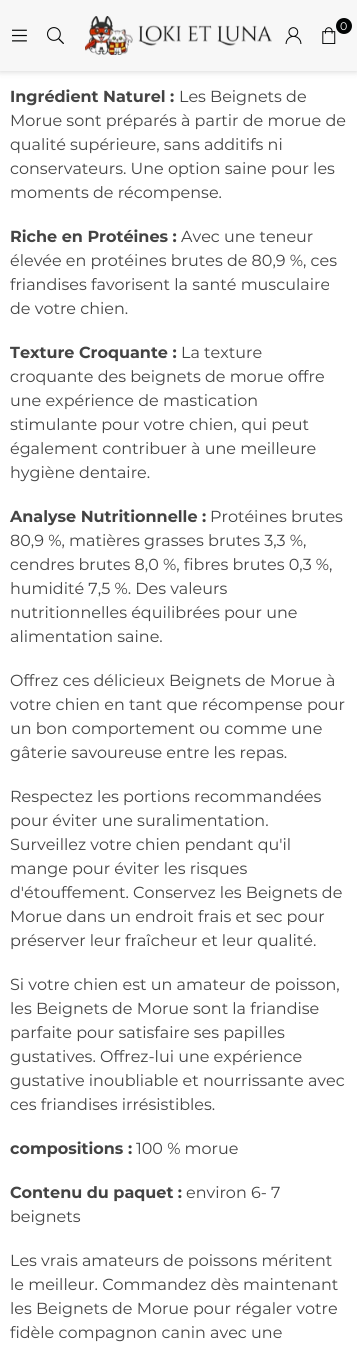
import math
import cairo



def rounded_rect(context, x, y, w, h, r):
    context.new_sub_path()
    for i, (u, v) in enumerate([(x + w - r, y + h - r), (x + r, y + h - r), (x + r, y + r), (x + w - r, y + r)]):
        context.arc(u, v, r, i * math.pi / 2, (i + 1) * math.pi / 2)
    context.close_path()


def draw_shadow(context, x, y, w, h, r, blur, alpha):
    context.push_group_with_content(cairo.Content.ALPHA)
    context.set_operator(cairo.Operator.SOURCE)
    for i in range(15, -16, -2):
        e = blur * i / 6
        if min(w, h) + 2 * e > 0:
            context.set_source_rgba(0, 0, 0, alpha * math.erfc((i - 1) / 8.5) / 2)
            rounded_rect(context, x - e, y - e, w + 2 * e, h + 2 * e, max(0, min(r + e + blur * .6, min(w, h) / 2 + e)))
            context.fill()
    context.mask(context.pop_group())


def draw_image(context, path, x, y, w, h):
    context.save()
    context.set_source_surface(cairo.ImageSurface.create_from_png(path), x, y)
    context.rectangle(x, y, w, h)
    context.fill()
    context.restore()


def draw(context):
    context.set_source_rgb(1, 1, 1)
    context.paint()
    context.set_source_rgb(0, 0, 0)
    draw_shadow(context, 0, 0, 357, 71, 0, 3.5, 0.2)
    context.set_source_rgb(247 / 255, 247 / 255, 247 / 255)
    context.rectangle(0, 0, 357, 71)
    context.fill()
    draw_image(context, "images/1.png", 12, 29, 15, 13)
    draw_image(context, "images/2.png", 47, 27, 17, 17)
    draw_image(context, "images/3.png", 85, 16, 187, 39)
    draw_image(context, "images/4.png", 285, 27, 17, 17)
    draw_image(context, "images/5.png", 322, 27, 14, 17)
    context.set_source_rgb(3 / 255, 5 / 255, 5 / 255)
    context.arc(344, 26, 8, 0, 2 * math.pi)
    context.fill()
    context.select_font_face("Montserrat")
    context.set_font_size(11)
    context.set_source_rgb(1, 1, 1)
    context.move_to(340, 30)
    context.show_text("0")
    context.select_font_face("Montserrat", cairo.FontSlant.NORMAL, cairo.FontWeight.BOLD)
    context.set_font_size(16)
    context.set_source_rgb(68 / 255, 68 / 255, 68 / 255)
    context.move_to(10, 102)
    context.show_text("Ingrédient Naturel :")
    context.select_font_face("Montserrat")
    context.move_to(179, 102)
    context.show_text("Les Beignets de")
    context.move_to(10, 126)
    context.show_text("Morue sont préparés à partir de morue de")
    context.move_to(10, 150)
    context.show_text("qualité supérieure, sans additifs ni")
    context.move_to(10, 174)
    context.show_text("conservateurs. Une option saine pour les")
    context.move_to(10, 198)
    context.show_text("moments de récompense.")
    context.select_font_face("Montserrat", cairo.FontSlant.NORMAL, cairo.FontWeight.BOLD)
    context.move_to(10, 242)
    context.show_text("Riche en Protéines :")
    context.select_font_face("Montserrat")
    context.move_to(181, 242)
    context.show_text("Avec une teneur")
    context.move_to(10, 266)
    context.show_text("élevée en protéines brutes de 80,9 %, ces")
    context.move_to(10, 290)
    context.show_text("friandises favorisent la santé musculaire")
    context.move_to(10, 314)
    context.show_text("de votre chien.")
    context.select_font_face("Montserrat", cairo.FontSlant.NORMAL, cairo.FontWeight.BOLD)
    context.move_to(10, 358)
    context.show_text("Texture Croquante :")
    context.select_font_face("Montserrat")
    context.move_to(181, 358)
    context.show_text("La texture")
    context.move_to(10, 382)
    context.show_text("croquante des beignets de morue offre")
    context.move_to(10, 406)
    context.show_text("une expérience de mastication")
    context.move_to(10, 430)
    context.show_text("stimulante pour votre chien, qui peut")
    context.move_to(10, 454)
    context.show_text("également contribuer à une meilleure")
    context.move_to(10, 478)
    context.show_text("hygiène dentaire.")
    context.select_font_face("Montserrat", cairo.FontSlant.NORMAL, cairo.FontWeight.BOLD)
    context.move_to(10, 522)
    context.show_text("Analyse Nutritionnelle :")
    context.select_font_face("Montserrat")
    context.move_to(210, 522)
    context.show_text("Protéines brutes")
    context.move_to(10, 546)
    context.show_text("80,9 %, matières grasses brutes 3,3 %,")
    context.move_to(10, 570)
    context.show_text("cendres brutes 8,0 %, fibres brutes 0,3 %,")
    context.move_to(10, 594)
    context.show_text("humidité 7,5 %. Des valeurs")
    context.move_to(10, 618)
    context.show_text("nutritionnelles équilibrées pour une")
    context.move_to(10, 642)
    context.show_text("alimentation saine.")
    context.move_to(10, 686)
    context.show_text("Offrez ces délicieux Beignets de Morue à")
    context.move_to(10, 710)
    context.show_text("votre chien en tant que récompense pour")
    context.move_to(10, 734)
    context.show_text("un bon comportement ou comme une")
    context.move_to(10, 758)
    context.show_text("gâterie savoureuse entre les repas.")
    context.move_to(10, 802)
    context.show_text("Respectez les portions recommandées")
    context.move_to(10, 826)
    context.show_text("pour éviter une suralimentation.")
    context.move_to(10, 850)
    context.show_text("Surveillez votre chien pendant qu'il")
    context.move_to(10, 874)
    context.show_text("mange pour éviter les risques")
    context.move_to(10, 898)
    context.show_text("d'étouffement. Conservez les Beignets de")
    context.move_to(10, 922)
    context.show_text("Morue dans un endroit frais et sec pour")
    context.move_to(10, 946)
    context.show_text("préserver leur fraîcheur et leur qualité.")
    context.move_to(10, 990)
    context.show_text("Si votre chien est un amateur de poisson,")
    context.move_to(10, 1014)
    context.show_text("les Beignets de Morue sont la friandise")
    context.move_to(10, 1038)
    context.show_text("parfaite pour satisfaire ses papilles")
    context.move_to(10, 1062)
    context.show_text("gustatives. Offrez-lui une expérience")
    context.move_to(10, 1086)
    context.show_text("gustative inoubliable et nourrissante avec")
    context.move_to(10, 1110)
    context.show_text("ces friandises irrésistibles.")
    context.select_font_face("Montserrat", cairo.FontSlant.NORMAL, cairo.FontWeight.BOLD)
    context.move_to(10, 1154)
    context.show_text("compositions :")
    context.select_font_face("Montserrat")
    context.move_to(136, 1154)
    context.show_text("100 % morue")
    context.select_font_face("Montserrat", cairo.FontSlant.NORMAL, cairo.FontWeight.BOLD)
    context.move_to(10, 1198)
    context.show_text("Contenu du paquet :")
    context.select_font_face("Montserrat")
    context.move_to(186, 1198)
    context.show_text("environ 6- 7")
    context.move_to(10, 1222)
    context.show_text("beignets")
    context.move_to(10, 1266)
    context.show_text("Les vrais amateurs de poissons méritent")
    context.move_to(10, 1290)
    context.show_text("le meilleur. Commandez dès maintenant")
    context.move_to(10, 1314)
    context.show_text("les Beignets de Morue pour régaler votre")
    context.move_to(10, 1338)
    context.show_text("fidèle compagnon canin avec une")


surface = cairo.ImageSurface(cairo.Format.RGB24, 357, 1354)
context = cairo.Context(surface)
options = cairo.FontOptions()
options.set_hint_metrics(cairo.HintMetrics.OFF)
options.set_hint_style(cairo.HintStyle.NONE)
context.set_font_options(options)
context.set_miter_limit(4)
draw(context)
surface.write_to_png("out.png")
